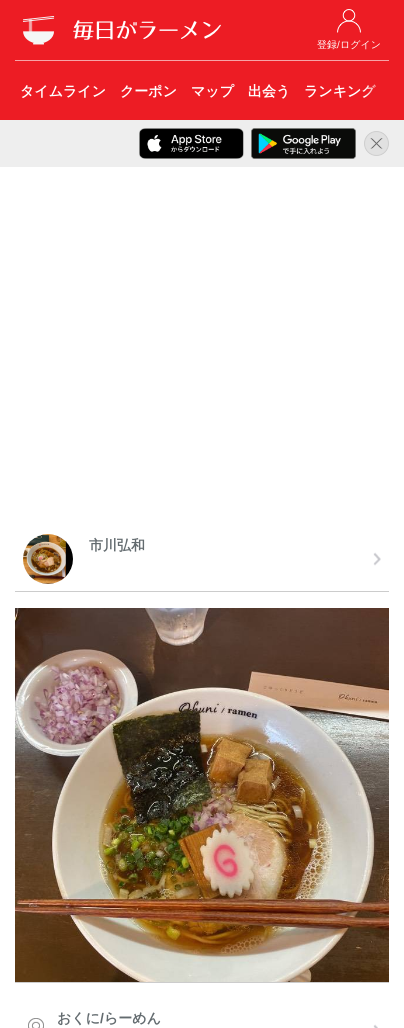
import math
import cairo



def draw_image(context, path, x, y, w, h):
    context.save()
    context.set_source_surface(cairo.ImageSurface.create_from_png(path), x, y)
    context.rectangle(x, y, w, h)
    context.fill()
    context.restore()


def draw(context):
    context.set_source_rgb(237 / 255, 28 / 255, 36 / 255)
    context.paint()
    draw_image(context, "images/1.png", 23, 16, 32, 29)
    draw_image(context, "images/2.png", 73, 20, 148, 20)
    draw_image(context, "images/3.png", 337, 9, 24, 24)
    context.set_source_rgb(247 / 255, 163 / 255, 166 / 255)
    context.rectangle(15, 60, 374, 1)
    context.fill()
    context.set_source_rgb(238 / 255, 238 / 255, 238 / 255)
    context.rectangle(0, 120, 404, 47)
    context.fill()
    draw_image(context, "images/4.png", 139, 128, 105, 31)
    draw_image(context, "images/5.png", 251, 128, 105, 31)
    draw_image(context, "images/6.png", 364, 131, 25, 25)
    context.set_source_rgb(1, 1, 1)
    context.rectangle(0, 167, 404, 861)
    context.fill()
    context.set_source_rgb(204 / 255, 204 / 255, 204 / 255)
    context.rectangle(15, 591, 374, 1)
    context.fill()
    draw_image(context, "images/7.png", 23, 534, 50, 50)
    draw_image(context, "images/8.png", 373, 552, 8, 14)
    context.rectangle(15, 982, 374, 1)
    context.fill()
    draw_image(context, "images/9.png", 15, 608, 374, 374)
    draw_image(context, "images/10.png", 28, 1018, 16, 10)
    draw_image(context, "images/11.png", 373, 1024, 5, 4)
    context.select_font_face("WenQuanYi Zen Hei Medium")
    context.set_font_size(10)
    context.set_source_rgb(1, 1, 1)
    context.move_to(317, 48)
    context.show_text("登録 ログイン")
    context.select_font_face("Liberation Sans")
    context.move_to(337, 48)
    context.show_text("/")
    context.select_font_face("WenQuanYi Zen Hei", cairo.FontSlant.NORMAL, cairo.FontWeight.BOLD)
    context.set_font_size(14)
    context.move_to(20, 96)
    context.show_text("タイムライン")
    context.move_to(120, 96)
    context.show_text("クーポン")
    context.move_to(191, 96)
    context.show_text("マップ")
    context.move_to(248, 96)
    context.show_text("出会う")
    context.move_to(304, 96)
    context.show_text("ランキング")
    gradient = cairo.LinearGradient(365, 60, 389, 60)
    gradient.add_color_stop_rgba(0, 237 / 255, 28 / 255, 36 / 255, 0)
    gradient.add_color_stop_rgba(1, 237 / 255, 28 / 255, 36 / 255, 1)
    context.set_source(gradient)
    context.rectangle(366, 85, 10, 11)
    context.fill()
    context.set_source_rgb(99 / 255, 107 / 255, 111 / 255)
    context.move_to(89, 550)
    context.show_text("市川弘和")
    context.move_to(57, 1023)
    context.show_text("おくに")
    context.select_font_face("Liberation Sans", cairo.FontSlant.NORMAL, cairo.FontWeight.BOLD)
    context.move_to(100, 1023)
    context.show_text("/")
    context.select_font_face("WenQuanYi Zen Hei", cairo.FontSlant.NORMAL, cairo.FontWeight.BOLD)
    context.move_to(104, 1023)
    context.show_text("らーめん")


surface = cairo.ImageSurface(cairo.Format.RGB24, 404, 1028)
context = cairo.Context(surface)
options = cairo.FontOptions()
options.set_hint_metrics(cairo.HintMetrics.OFF)
options.set_hint_style(cairo.HintStyle.NONE)
context.set_font_options(options)
context.set_miter_limit(4)
draw(context)
surface.write_to_png("out.png")
